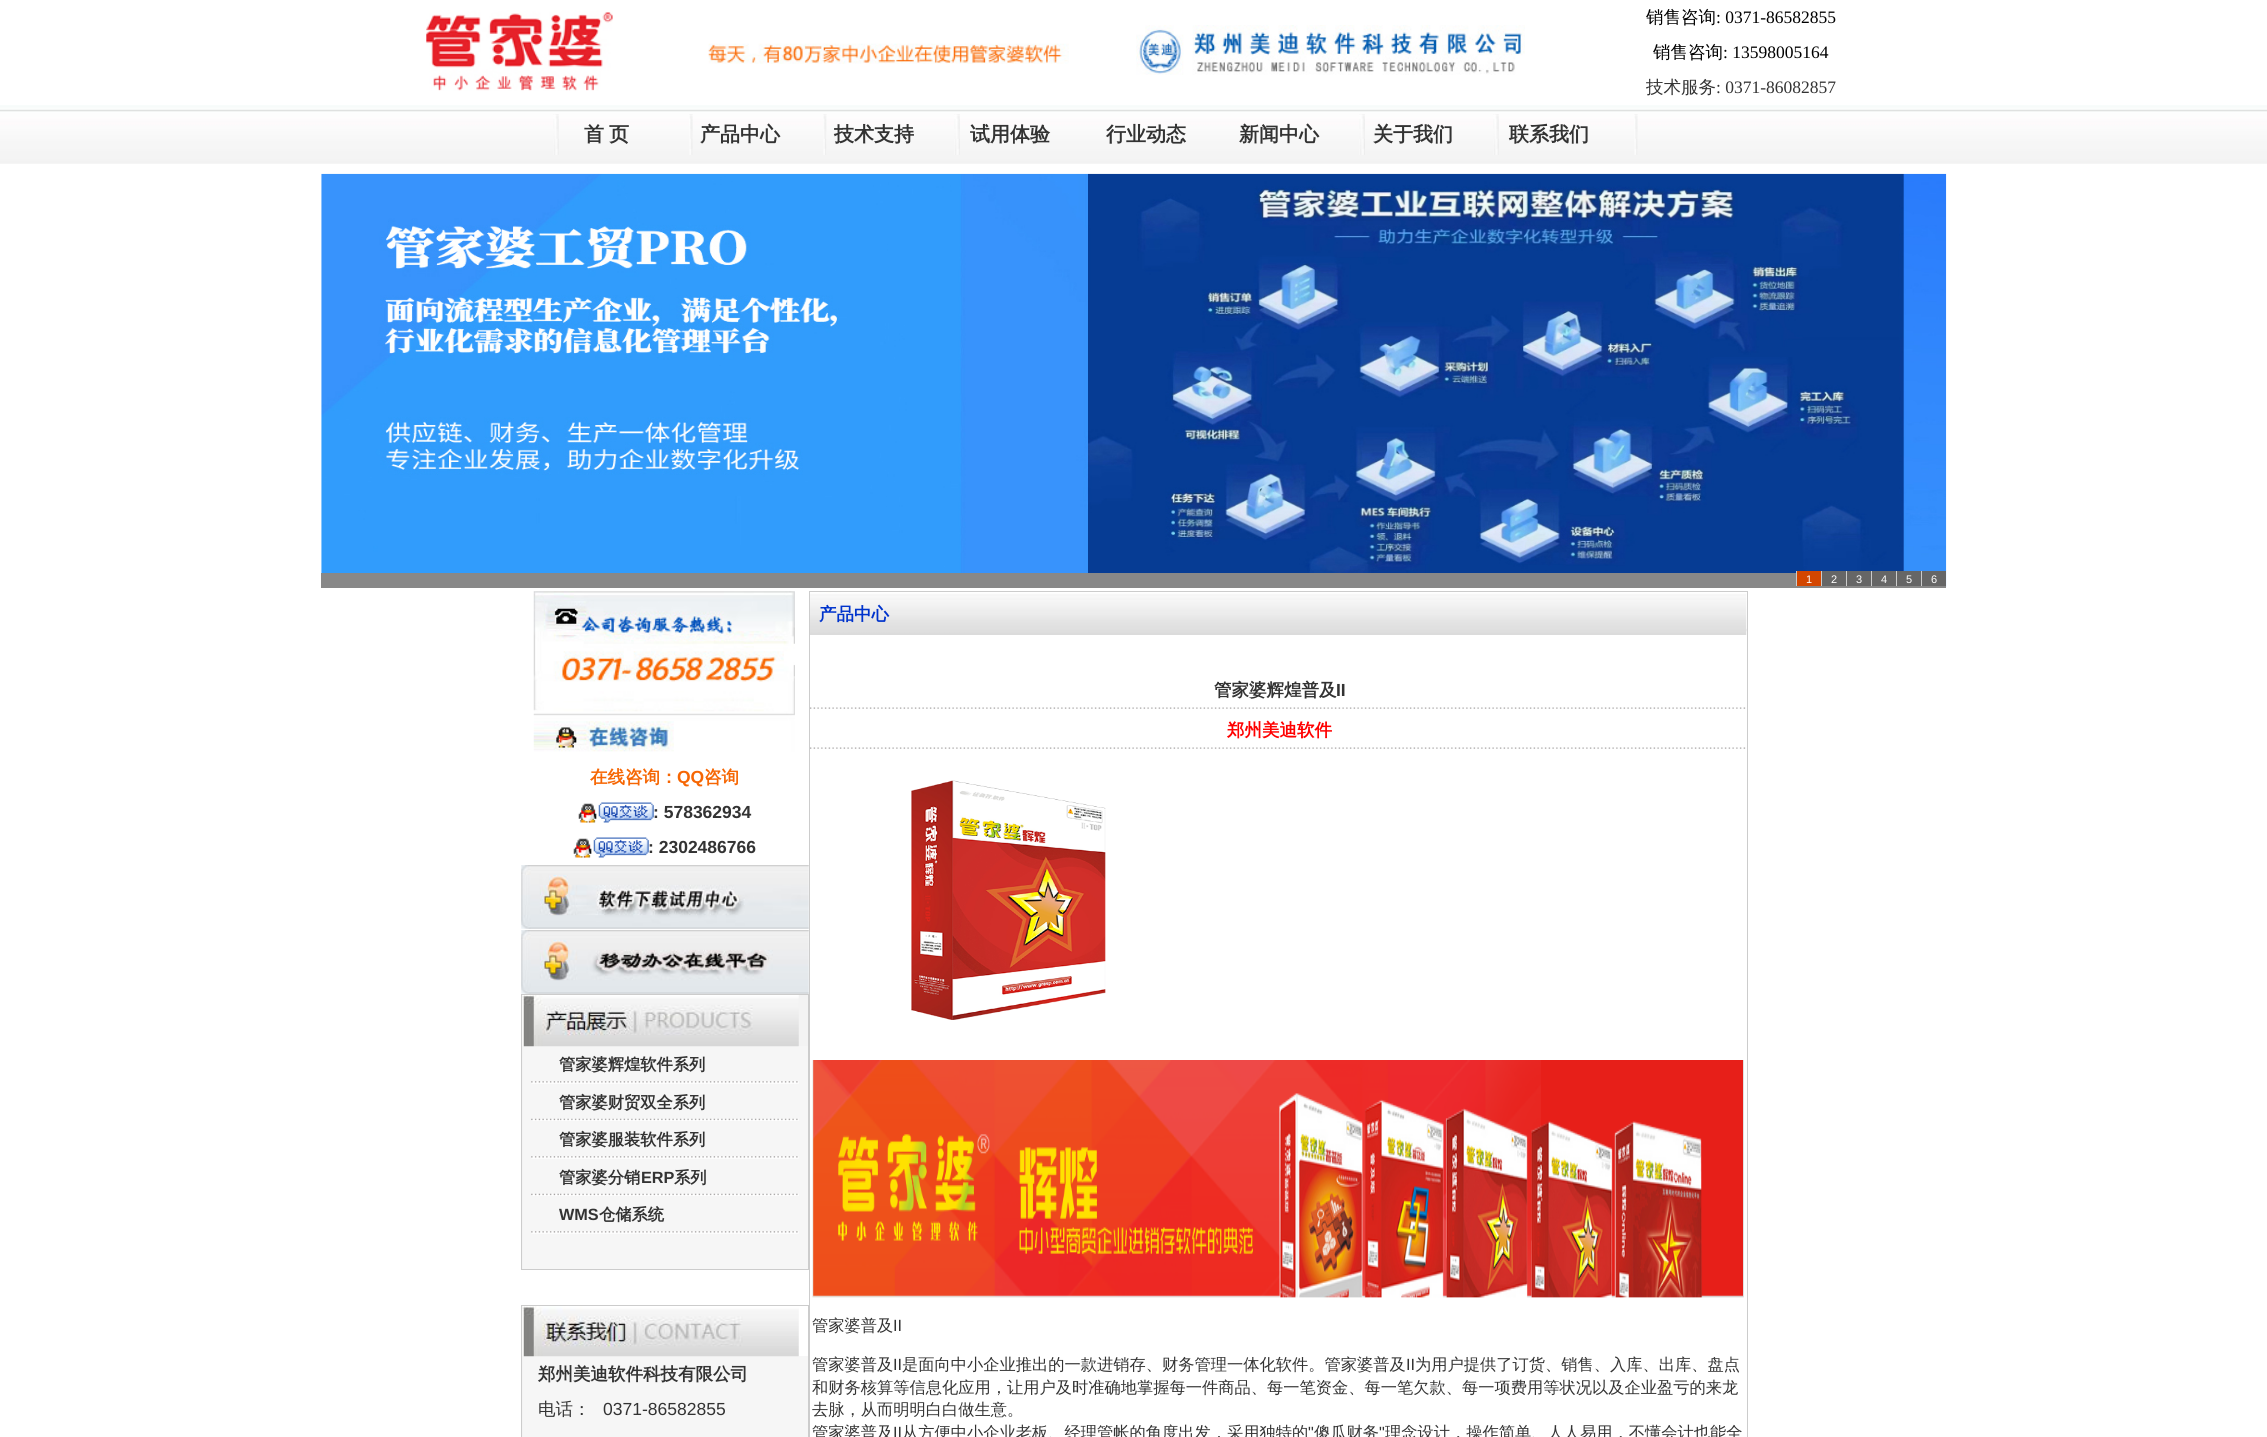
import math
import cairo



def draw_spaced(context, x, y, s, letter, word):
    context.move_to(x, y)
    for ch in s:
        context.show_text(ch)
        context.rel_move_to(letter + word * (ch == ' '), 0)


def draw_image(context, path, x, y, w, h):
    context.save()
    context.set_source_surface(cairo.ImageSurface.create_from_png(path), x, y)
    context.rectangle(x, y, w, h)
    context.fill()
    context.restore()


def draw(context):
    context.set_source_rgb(1, 1, 1)
    context.paint()
    draw_image(context, "images/1.png", 426, 10, 187, 81)
    draw_image(context, "images/2.png", 708, 43, 361, 21)
    draw_image(context, "images/3.png", 1136, 25, 389, 50)
    draw_image(context, "images/4.png", 0, 105, 2267, 59)
    draw_image(context, "images/5.png", 553, 114, 6, 41)
    draw_image(context, "images/6.png", 689, 114, 4, 41)
    draw_image(context, "images/7.png", 823, 114, 4, 41)
    draw_image(context, "images/8.png", 954, 114, 6, 41)
    draw_image(context, "images/9.png", 1359, 114, 6, 41)
    draw_image(context, "images/10.png", 1493, 114, 6, 41)
    draw_image(context, "images/11.png", 1634, 114, 4, 41)
    draw_image(context, "images/12.png", 321, 173, 1626, 414)
    context.set_source_rgb(136 / 255, 136 / 255, 136 / 255)
    context.rectangle(321, 573, 1625, 15)
    context.fill()
    context.set_source_rgb(211 / 255, 70 / 255, 0)
    context.rectangle(1797, 571, 24, 15)
    context.fill()
    context.set_source_rgb(204 / 255, 204 / 255, 204 / 255)
    context.rectangle(1796, 571, 1, 15)
    context.fill()
    context.set_source_rgb(102 / 255, 102 / 255, 102 / 255)
    context.rectangle(1822, 571, 24, 15)
    context.fill()
    context.set_source_rgb(204 / 255, 204 / 255, 204 / 255)
    context.rectangle(1821, 571, 1, 15)
    context.fill()
    context.set_source_rgb(102 / 255, 102 / 255, 102 / 255)
    context.rectangle(1847, 571, 24, 15)
    context.fill()
    context.set_source_rgb(204 / 255, 204 / 255, 204 / 255)
    context.rectangle(1846, 571, 1, 15)
    context.fill()
    context.set_source_rgb(102 / 255, 102 / 255, 102 / 255)
    context.rectangle(1872, 571, 24, 15)
    context.fill()
    context.set_source_rgb(204 / 255, 204 / 255, 204 / 255)
    context.rectangle(1871, 571, 1, 15)
    context.fill()
    context.set_source_rgb(102 / 255, 102 / 255, 102 / 255)
    context.rectangle(1897, 571, 24, 15)
    context.fill()
    context.set_source_rgb(204 / 255, 204 / 255, 204 / 255)
    context.rectangle(1896, 571, 1, 15)
    context.fill()
    context.set_source_rgb(102 / 255, 102 / 255, 102 / 255)
    context.rectangle(1922, 571, 24, 15)
    context.fill()
    context.set_source_rgb(204 / 255, 204 / 255, 204 / 255)
    context.rectangle(1921, 571, 1, 15)
    context.fill()
    draw_image(context, "images/13.png", 533, 591, 262, 161)
    draw_image(context, "images/14.png", 578, 802, 76, 21)
    draw_image(context, "images/14.png", 573, 837, 76, 21)
    draw_image(context, "images/15.png", 521, 865, 288, 64)
    draw_image(context, "images/16.png", 521, 930, 288, 64)
    context.set_source_rgb(243 / 255, 243 / 255, 243 / 255)
    context.rectangle(521.5, 994.5, 287, 275)
    context.fill_preserve()
    context.set_source_rgb(204 / 255, 204 / 255, 204 / 255)
    context.set_line_width(1)
    context.stroke()
    context.set_source_rgb(246 / 255, 246 / 255, 246 / 255)
    context.rectangle(523, 1046, 285, 223)
    context.fill()
    draw_image(context, "images/17.png", 522, 995, 277, 52)
    draw_image(context, "images/18.png", 560, 1081, 239, 3)
    draw_image(context, "images/19.png", 531, 1081, 29, 3)
    draw_image(context, "images/20.png", 560, 1118, 239, 3)
    draw_image(context, "images/21.png", 531, 1118, 29, 3)
    draw_image(context, "images/18.png", 560, 1156, 239, 3)
    draw_image(context, "images/19.png", 531, 1156, 29, 3)
    draw_image(context, "images/20.png", 560, 1193, 239, 3)
    draw_image(context, "images/21.png", 531, 1193, 29, 3)
    draw_image(context, "images/18.png", 560, 1231, 239, 3)
    draw_image(context, "images/19.png", 531, 1231, 29, 3)
    context.set_source_rgb(243 / 255, 243 / 255, 243 / 255)
    context.rectangle(522, 1306, 1, 131)
    context.fill()
    context.rectangle(521.5, 1305.5, 287, 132)
    context.set_source_rgb(204 / 255, 204 / 255, 204 / 255)
    context.stroke()
    context.set_source_rgb(246 / 255, 246 / 255, 246 / 255)
    context.rectangle(523, 1356, 285, 81)
    context.fill()
    draw_image(context, "images/22.png", 522, 1306, 277, 51)
    context.rectangle(809.5, 591.5, 938, 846)
    context.set_source_rgb(204 / 255, 204 / 255, 204 / 255)
    context.stroke()
    draw_image(context, "images/23.png", 810, 592, 937, 41)
    draw_image(context, "images/24.png", 810, 593, 937, 42)
    draw_image(context, "images/25.png", 810, 707, 936, 2)
    draw_image(context, "images/25.png", 810, 747, 936, 2)
    draw_image(context, "images/26.png", 911, 780, 195, 240)
    draw_image(context, "images/27.png", 812, 1060, 932, 238)
    context.select_font_face("WenQuanYi Zen Hei Medium")
    context.set_font_size(17.5)
    context.set_source_rgb(0, 0, 0)
    context.move_to(1646, 23)
    context.show_text("销售咨询")
    context.select_font_face("Liberation Serif")
    context.move_to(1716, 23)
    context.show_text(": 0371-86582855")
    context.select_font_face("WenQuanYi Zen Hei Medium")
    context.move_to(1653, 58)
    context.show_text("销售咨询")
    context.select_font_face("Liberation Serif")
    context.move_to(1723, 58)
    context.show_text(": 13598005164")
    context.select_font_face("WenQuanYi Zen Hei Medium")
    context.set_source_rgb(51 / 255, 51 / 255, 51 / 255)
    context.move_to(1646, 93)
    context.show_text("技术服务")
    context.select_font_face("Liberation Serif")
    context.move_to(1716, 93)
    context.show_text(": 0371-86082857")
    context.select_font_face("WenQuanYi Zen Hei", cairo.FontSlant.NORMAL, cairo.FontWeight.BOLD)
    context.set_font_size(20)
    draw_spaced(context, 584, 141, "首 页", 0, -1)
    context.move_to(700, 141)
    context.show_text("产品中心")
    context.move_to(834, 141)
    context.show_text("技术支持")
    context.move_to(970, 141)
    context.show_text("试用体验")
    context.move_to(1106, 141)
    context.show_text("行业动态")
    context.move_to(1239, 141)
    context.show_text("新闻中心")
    context.move_to(1373, 141)
    context.show_text("关于我们")
    context.move_to(1509, 141)
    context.show_text("联系我们")
    context.select_font_face("Liberation Sans")
    context.set_font_size(11)
    context.set_source_rgb(1, 1, 1)
    context.move_to(1806, 583)
    context.show_text("1")
    context.move_to(1831, 583)
    context.show_text("2")
    context.move_to(1856, 583)
    context.show_text("3")
    context.move_to(1881, 583)
    context.show_text("4")
    context.move_to(1906, 583)
    context.show_text("5")
    context.move_to(1931, 583)
    context.show_text("6")
    context.select_font_face("WenQuanYi Zen Hei", cairo.FontSlant.NORMAL, cairo.FontWeight.BOLD)
    context.set_font_size(17.5)
    context.set_source_rgb(246 / 255, 102 / 255, 3 / 255)
    context.move_to(590, 783)
    context.show_text("在线咨询：")
    context.select_font_face("Liberation Sans", cairo.FontSlant.NORMAL, cairo.FontWeight.BOLD)
    context.move_to(677, 783)
    context.show_text("QQ")
    context.select_font_face("WenQuanYi Zen Hei", cairo.FontSlant.NORMAL, cairo.FontWeight.BOLD)
    context.move_to(704, 783)
    context.show_text("咨询")
    context.select_font_face("Liberation Sans", cairo.FontSlant.NORMAL, cairo.FontWeight.BOLD)
    context.set_source_rgb(51 / 255, 51 / 255, 51 / 255)
    context.move_to(653, 818)
    context.show_text(": 578362934")
    context.move_to(648, 853)
    context.show_text(": 2302486766")
    context.select_font_face("WenQuanYi Zen Hei", cairo.FontSlant.NORMAL, cairo.FontWeight.BOLD)
    context.set_font_size(16.25)
    context.move_to(559, 1070)
    context.show_text("管家婆辉煌软件系列")
    context.move_to(559, 1108)
    context.show_text("管家婆财贸双全系列")
    context.move_to(559, 1145)
    context.show_text("管家婆服装软件系列")
    context.move_to(559, 1183)
    context.show_text("管家婆分销")
    context.select_font_face("Liberation Sans", cairo.FontSlant.NORMAL, cairo.FontWeight.BOLD)
    context.move_to(641, 1183)
    context.show_text("ERP")
    context.select_font_face("WenQuanYi Zen Hei", cairo.FontSlant.NORMAL, cairo.FontWeight.BOLD)
    context.move_to(674, 1183)
    context.show_text("系列")
    context.select_font_face("Liberation Sans", cairo.FontSlant.NORMAL, cairo.FontWeight.BOLD)
    context.move_to(559, 1220)
    context.show_text("WMS")
    context.select_font_face("WenQuanYi Zen Hei", cairo.FontSlant.NORMAL, cairo.FontWeight.BOLD)
    context.move_to(599, 1220)
    context.show_text("仓储系统")
    context.set_font_size(17.5)
    context.move_to(538, 1380)
    context.show_text("郑州美迪软件科技有限公司")
    context.select_font_face("WenQuanYi Zen Hei Medium")
    context.move_to(538, 1415)
    context.show_text("电话：")
    context.select_font_face("Liberation Sans")
    context.move_to(603, 1415)
    context.show_text("0371-86582855")
    context.select_font_face("WenQuanYi Zen Hei", cairo.FontSlant.NORMAL, cairo.FontWeight.BOLD)
    context.set_source_rgb(0, 51 / 255, 204 / 255)
    context.move_to(819, 620)
    context.show_text("产品中心")
    context.set_source_rgb(51 / 255, 51 / 255, 51 / 255)
    context.move_to(1214, 696)
    context.show_text("管家婆辉煌普及")
    context.select_font_face("Liberation Sans", cairo.FontSlant.NORMAL, cairo.FontWeight.BOLD)
    context.move_to(1336, 696)
    context.show_text("II")
    context.select_font_face("WenQuanYi Zen Hei", cairo.FontSlant.NORMAL, cairo.FontWeight.BOLD)
    context.set_source_rgb(1, 0, 0)
    context.move_to(1227, 736)
    context.show_text("郑州美迪软件")
    context.select_font_face("WenQuanYi Zen Hei Medium")
    context.set_font_size(16.25)
    context.set_source_rgb(51 / 255, 51 / 255, 51 / 255)
    context.move_to(812, 1331)
    context.show_text("管家婆普及")
    context.select_font_face("Liberation Sans")
    context.move_to(893, 1331)
    context.show_text("II")
    context.select_font_face("WenQuanYi Zen Hei Medium")
    context.move_to(812, 1370)
    context.show_text("管家婆普及")
    context.select_font_face("Liberation Sans")
    context.move_to(893, 1370)
    context.show_text("II")
    context.select_font_face("WenQuanYi Zen Hei Medium")
    context.move_to(902, 1370)
    context.show_text("是面向中小企业推出的一款进销存、财务管理一体化软件。管家婆普及")
    context.select_font_face("Liberation Sans")
    context.move_to(1406, 1370)
    context.show_text("II")
    context.select_font_face("WenQuanYi Zen Hei Medium")
    context.move_to(1415, 1370)
    context.show_text("为用户提供了订货、销售、入库、出库、盘点")
    context.move_to(812, 1393)
    context.show_text("和财务核算等信息化应用，让用户及时准确地掌握每一件商品、每一笔资金、每一笔欠款、每一项费用等状况以及企业盈亏的来龙")
    context.move_to(812, 1415)
    context.show_text("去脉，从而明明白白做生意。")
    context.move_to(812, 1438)
    context.show_text("管家婆普及")
    context.select_font_face("Liberation Sans")
    context.move_to(893, 1438)
    context.show_text("II")
    context.select_font_face("WenQuanYi Zen Hei Medium")
    context.move_to(902, 1438)
    context.show_text("从方便中小企业老板、经理管帐的角度出发，采用独特的")
    context.select_font_face("Liberation Sans")
    context.move_to(1308, 1438)
    context.show_text("\"")
    context.select_font_face("WenQuanYi Zen Hei Medium")
    context.move_to(1314, 1438)
    context.show_text("傻瓜财务")
    context.select_font_face("Liberation Sans")
    context.move_to(1379, 1438)
    context.show_text("\"")
    context.select_font_face("WenQuanYi Zen Hei Medium")
    context.move_to(1385, 1438)
    context.show_text("理念设计，操作简单、人人易用，不懂会计也能全")


surface = cairo.ImageSurface(cairo.Format.RGB24, 2267, 1437)
context = cairo.Context(surface)
options = cairo.FontOptions()
options.set_hint_metrics(cairo.HintMetrics.OFF)
options.set_hint_style(cairo.HintStyle.NONE)
context.set_font_options(options)
context.set_miter_limit(4)
draw(context)
surface.write_to_png("out.png")
